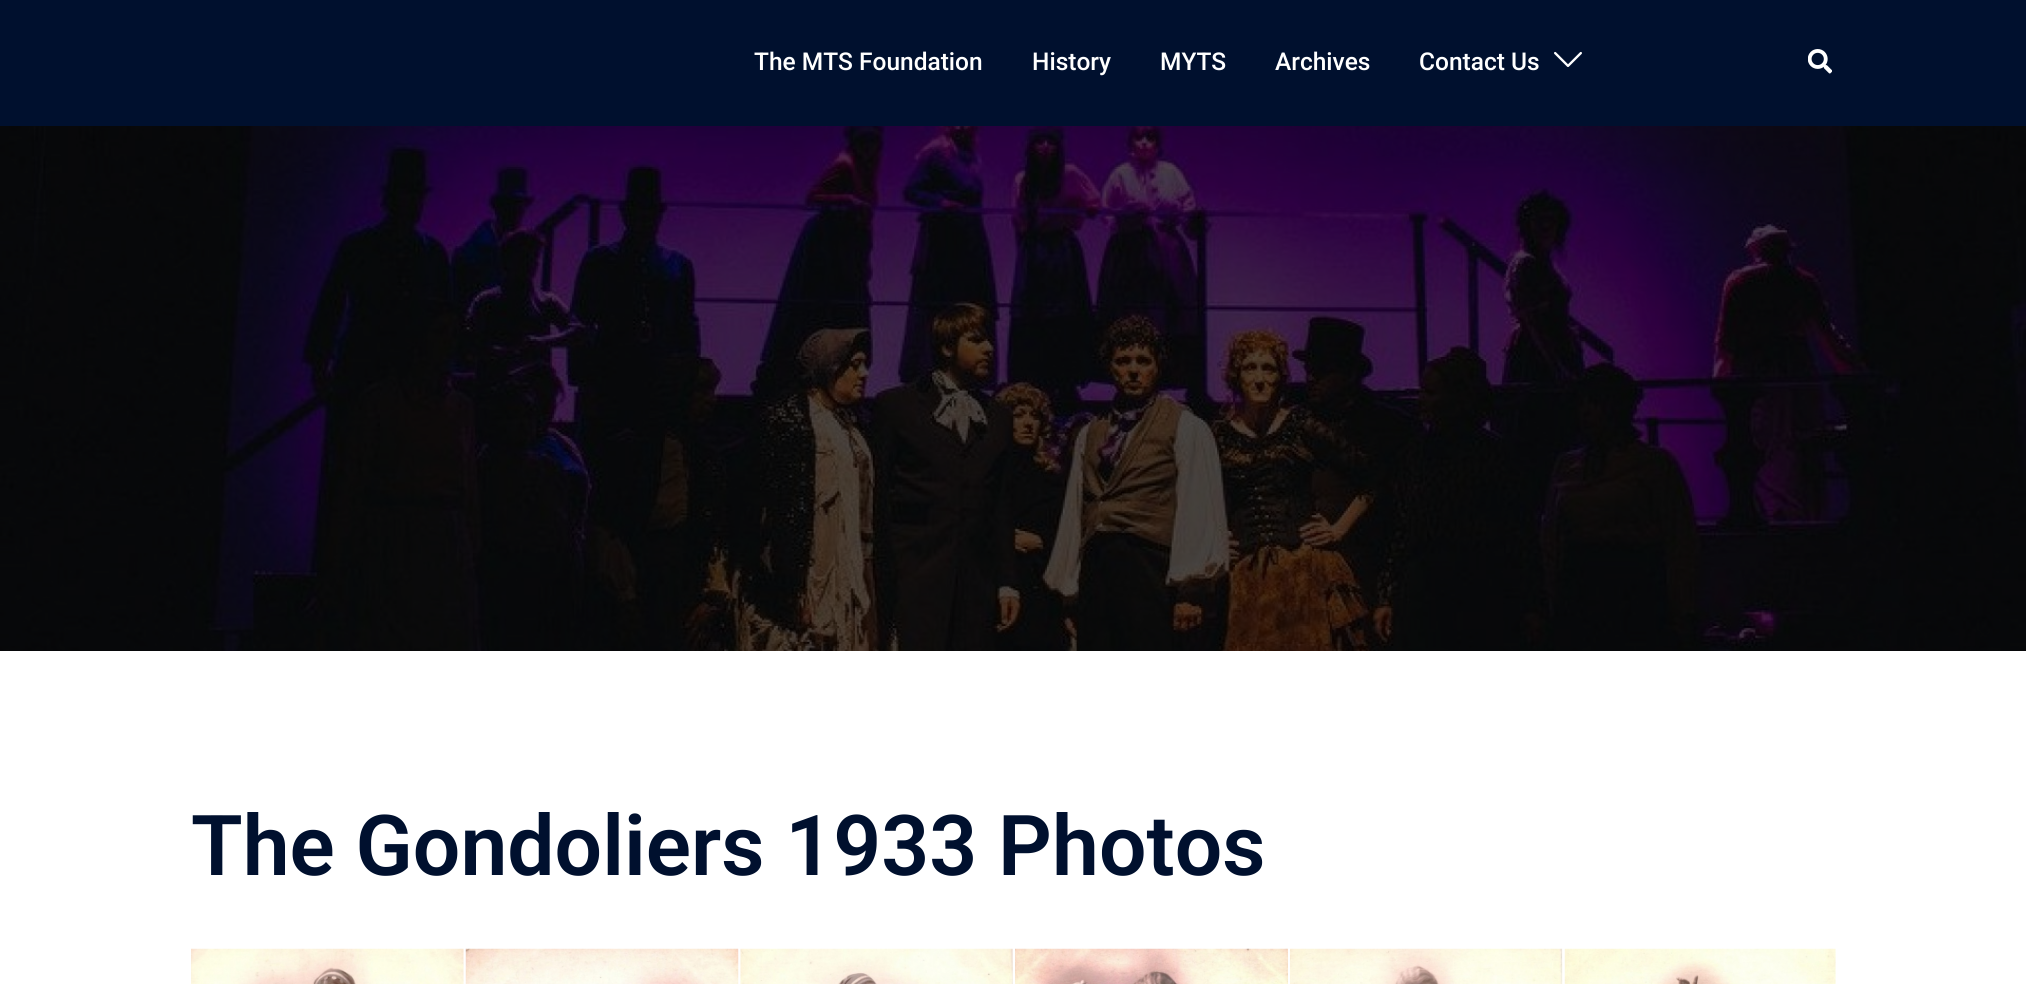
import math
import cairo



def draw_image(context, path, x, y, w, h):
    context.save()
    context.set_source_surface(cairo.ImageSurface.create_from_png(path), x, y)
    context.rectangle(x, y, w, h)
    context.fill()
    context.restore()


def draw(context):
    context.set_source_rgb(1, 1, 1)
    context.paint()
    context.set_source_rgb(0, 16 / 255, 46 / 255)
    context.rectangle(0, 0, 2026, 126)
    context.fill()
    draw_image(context, "images/1.png", 1554, 51, 28, 16)
    draw_image(context, "images/2.png", 1808, 49, 24, 25)
    draw_image(context, "images/3.png", 0, 126, 2026, 525)
    draw_image(context, "images/4.png", 191, 948, 273, 36)
    draw_image(context, "images/5.png", 465, 948, 274, 36)
    draw_image(context, "images/6.png", 740, 948, 273, 36)
    draw_image(context, "images/7.png", 1015, 948, 273, 36)
    draw_image(context, "images/8.png", 1290, 948, 273, 36)
    draw_image(context, "images/9.png", 1564, 948, 272, 36)
    context.select_font_face("Roboto Medium")
    context.set_font_size(24.5)
    context.set_source_rgb(1, 1, 1)
    context.move_to(754, 70)
    context.show_text("The MTS Foundation")
    context.move_to(1032, 70)
    context.show_text("History")
    context.move_to(1160, 70)
    context.show_text("MYTS")
    context.move_to(1275, 70)
    context.show_text("Archives")
    context.move_to(1419, 70)
    context.show_text("Contact Us")
    context.select_font_face("Roboto SemiBold")
    context.set_font_size(84)
    context.set_source_rgb(0, 16 / 255, 46 / 255)
    context.move_to(191, 875)
    context.show_text("The Gondoliers 1933 Photos")


surface = cairo.ImageSurface(cairo.Format.RGB24, 2026, 984)
context = cairo.Context(surface)
options = cairo.FontOptions()
options.set_hint_metrics(cairo.HintMetrics.OFF)
options.set_hint_style(cairo.HintStyle.NONE)
context.set_font_options(options)
context.set_miter_limit(4)
draw(context)
surface.write_to_png("out.png")
